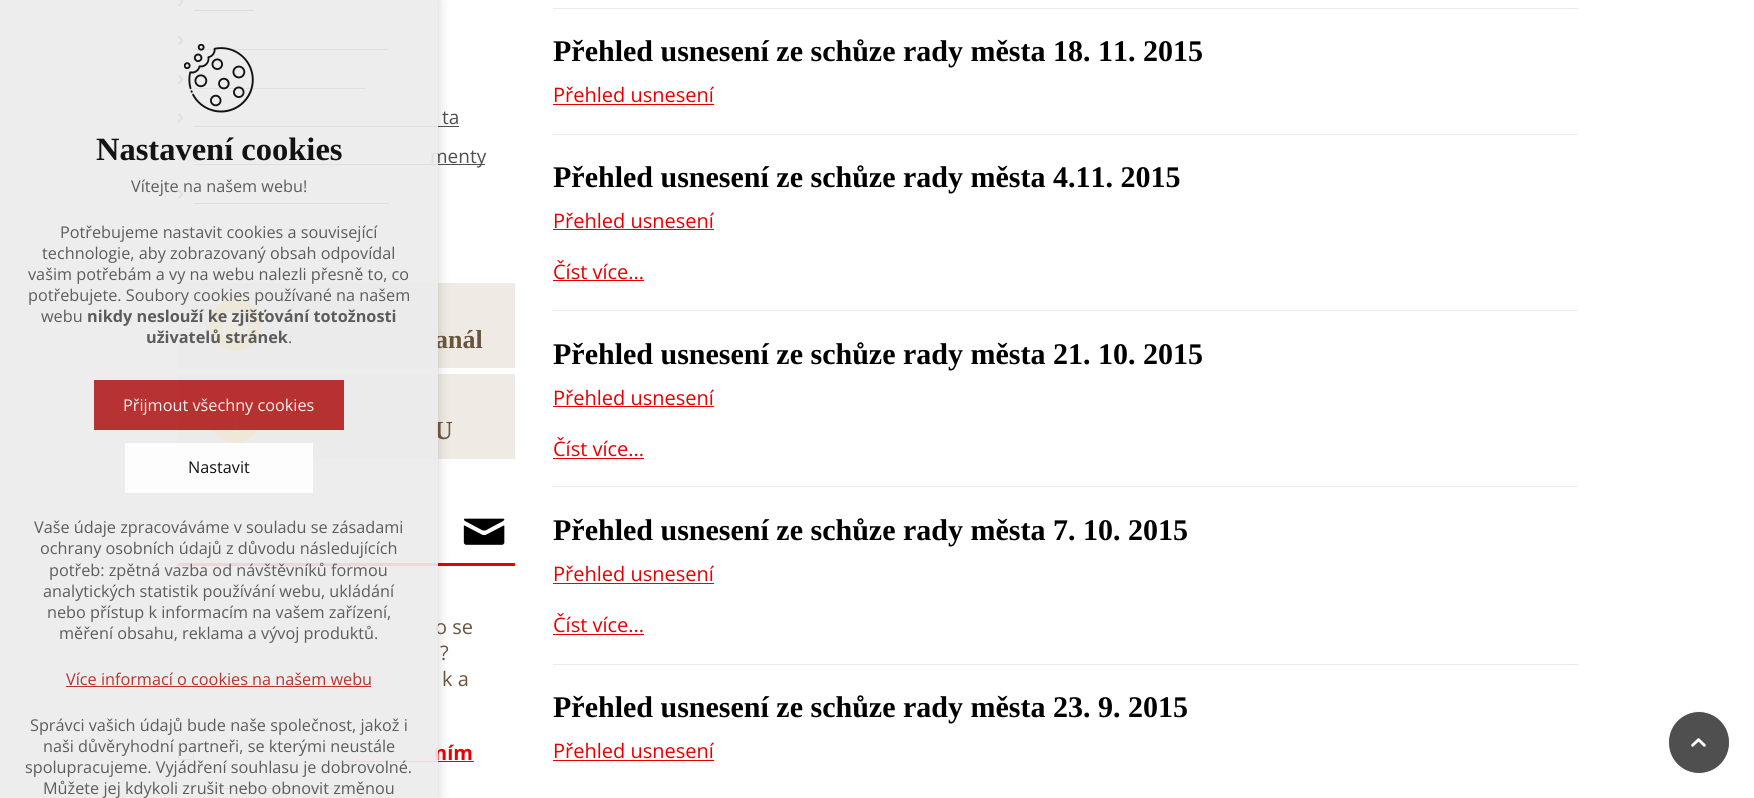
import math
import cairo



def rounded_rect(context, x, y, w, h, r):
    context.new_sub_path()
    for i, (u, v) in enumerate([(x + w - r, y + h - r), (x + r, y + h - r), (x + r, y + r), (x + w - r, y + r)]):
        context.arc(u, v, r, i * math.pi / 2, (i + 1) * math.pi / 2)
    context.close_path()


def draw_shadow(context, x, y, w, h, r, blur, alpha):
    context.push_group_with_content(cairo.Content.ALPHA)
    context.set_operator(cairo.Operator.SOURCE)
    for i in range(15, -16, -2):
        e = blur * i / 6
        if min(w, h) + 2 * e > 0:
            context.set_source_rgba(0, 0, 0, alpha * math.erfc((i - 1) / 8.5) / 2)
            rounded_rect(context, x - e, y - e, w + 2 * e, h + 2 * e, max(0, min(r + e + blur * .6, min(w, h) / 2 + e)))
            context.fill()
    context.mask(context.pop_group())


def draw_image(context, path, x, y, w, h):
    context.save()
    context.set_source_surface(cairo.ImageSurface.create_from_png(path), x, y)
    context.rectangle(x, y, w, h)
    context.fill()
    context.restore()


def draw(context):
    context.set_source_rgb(1, 1, 1)
    context.paint()
    draw_image(context, "images/2.png", 177, 0, 7, 7)
    context.set_source_rgb(79 / 255, 79 / 255, 79 / 255)
    context.rectangle(194, 10, 60, 1)
    context.fill()
    draw_image(context, "images/3.png", 177, 35, 7, 11)
    context.rectangle(194, 49, 194, 1)
    context.fill()
    draw_image(context, "images/4.png", 177, 74, 7, 10)
    context.rectangle(194, 88, 172, 1)
    context.fill()
    draw_image(context, "images/5.png", 177, 113, 7, 10)
    context.rectangle(194, 126, 265, 1)
    context.fill()
    draw_image(context, "images/3.png", 177, 150, 7, 11)
    context.rectangle(194, 164, 291, 1)
    context.fill()
    draw_image(context, "images/4.png", 177, 189, 7, 10)
    context.rectangle(194, 203, 195, 1)
    context.fill()
    context.set_source_rgb(239 / 255, 234 / 255, 227 / 255)
    context.rectangle(178, 283, 337, 85)
    context.fill()
    context.set_source_rgb(1, 196 / 255, 0)
    context.arc(235, 325, 26, 0, 2 * math.pi)
    context.fill()
    draw_image(context, "images/6.png", 222, 311, 27, 27)
    context.set_source_rgb(239 / 255, 234 / 255, 227 / 255)
    context.rectangle(178, 374, 337, 85)
    context.fill()
    context.set_source_rgb(1, 196 / 255, 0)
    rounded_rect(context, 209, 390, 52, 53, 26)
    context.fill()
    draw_image(context, "images/7.png", 226, 398, 20, 34)
    context.set_source_rgb(230 / 255, 0, 0)
    context.rectangle(178, 563, 337, 3)
    context.fill()
    rounded_rect(context, 178.5, 744.5, 15, 15, 2)
    context.set_source_rgb(118 / 255, 118 / 255, 118 / 255)
    context.set_line_width(1)
    context.stroke()
    context.set_source_rgb(230 / 255, 0, 0)
    context.rectangle(345, 761, 129, 1)
    context.fill()
    context.rectangle(209, 788, 152, 1)
    context.fill()
    context.save()
    context.set_fill_rule(cairo.FillRule.EVEN_ODD)
    context.new_path()
    context.move_to(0, 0)
    context.line_to(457, 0)
    context.line_to(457, 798)
    context.line_to(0, 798)
    context.close_path()
    context.move_to(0, 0)
    context.line_to(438, 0)
    context.line_to(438, 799)
    context.line_to(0, 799)
    context.close_path()
    context.clip()
    context.set_source_rgb(1 / 255, 1 / 255, 1 / 255)
    draw_shadow(context, 0, 0, 438, 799, 0, 6, 0.18)
    context.restore()
    draw_image(context, "images/8.png", 463, 518, 42, 27)
    context.set_source_rgb(239 / 255, 234 / 255, 227 / 255)
    context.rectangle(553, 8, 1025, 1)
    context.fill()
    context.set_source_rgb(230 / 255, 0, 0)
    context.rectangle(553, 104, 161, 1)
    context.fill()
    context.set_source_rgb(239 / 255, 234 / 255, 227 / 255)
    context.rectangle(553, 134, 1025, 1)
    context.fill()
    context.set_source_rgb(230 / 255, 0, 0)
    context.rectangle(553, 229, 161, 1)
    context.fill()
    context.rectangle(553, 280, 91, 1)
    context.fill()
    context.set_source_rgb(239 / 255, 234 / 255, 227 / 255)
    context.rectangle(553, 310, 1025, 1)
    context.fill()
    context.set_source_rgb(230 / 255, 0, 0)
    context.rectangle(553, 406, 161, 1)
    context.fill()
    context.rectangle(553, 458, 91, 1)
    context.fill()
    context.set_source_rgb(239 / 255, 234 / 255, 227 / 255)
    context.rectangle(553, 486, 1025, 1)
    context.fill()
    context.set_source_rgb(230 / 255, 0, 0)
    context.rectangle(553, 583, 161, 1)
    context.fill()
    context.rectangle(553, 634, 91, 1)
    context.fill()
    context.set_source_rgb(239 / 255, 234 / 255, 227 / 255)
    context.rectangle(553, 664, 1025, 1)
    context.fill()
    context.set_source_rgb(230 / 255, 0, 0)
    context.rectangle(553, 760, 161, 1)
    context.fill()
    context.set_source_rgb(79 / 255, 79 / 255, 79 / 255)
    rounded_rect(context, 1668.5, 711.5, 61, 62, 30.5)
    context.fill_preserve()
    context.set_source_rgb(1, 1, 1)
    context.stroke()
    draw_image(context, "images/9.png", 1691, 738, 15, 9)
    context.select_font_face("Open Sans")
    context.set_font_size(19)
    context.set_source_rgb(79 / 255, 79 / 255, 79 / 255)
    context.move_to(442, 124)
    context.show_text("ta")
    context.move_to(430, 163)
    context.show_text("menty")
    context.select_font_face("Liberation Serif", cairo.FontSlant.NORMAL, cairo.FontWeight.BOLD)
    context.set_font_size(26)
    context.set_source_rgb(105 / 255, 85 / 255, 61 / 255)
    context.move_to(435, 348)
    context.show_text("anál")
    context.move_to(434, 439)
    context.show_text("U")
    context.select_font_face("Open Sans")
    context.set_font_size(20)
    context.move_to(435, 634)
    context.show_text("o se")
    context.move_to(440, 660)
    context.show_text("?")
    context.move_to(442, 686)
    context.show_text("k a")
    context.select_font_face("Open Sans", cairo.FontSlant.NORMAL, cairo.FontWeight.BOLD)
    context.set_source_rgb(230 / 255, 0, 0)
    context.move_to(434, 760)
    context.show_text("ním")
    context.set_source_rgba(235 / 255, 235 / 255, 235 / 255, 0.92)
    context.rectangle(0, 0, 438, 798)
    context.fill()
    context.select_font_face("Open Sans")
    context.set_font_size(16.25)
    context.set_source_rgb(92 / 255, 92 / 255, 92 / 255)
    context.move_to(43, 794)
    context.show_text("Můžete jej kdykoli zrušit nebo obnovit změnou")
    context.move_to(25, 773)
    context.show_text("spolupracujeme. Vyjádření souhlasu je dobrovolné.")
    context.move_to(43, 752)
    context.show_text("naši důvěryhodní partneři, se kterými neustále")
    context.move_to(30, 731)
    context.show_text("Správci vašich údajů bude naše společnost, jakož i")
    context.set_source_rgb(183 / 255, 50 / 255, 50 / 255)
    context.move_to(66, 685)
    context.show_text("Více informací o cookies na našem webu")
    context.set_source_rgba(178 / 255, 34 / 255, 34 / 255, 0.92)
    context.rectangle(66, 686, 305, 1)
    context.fill()
    context.set_source_rgb(92 / 255, 92 / 255, 92 / 255)
    context.move_to(59, 639)
    context.show_text("měření obsahu, reklama a vývoj produktů.")
    context.move_to(47, 618)
    context.show_text("nebo přístup k informacím na vašem zařízení,")
    context.move_to(43, 597)
    context.show_text("analytických statistik používání webu, ukládání")
    context.move_to(49, 576)
    context.show_text("potřeb: zpětná vazba od návštěvníků formou")
    context.move_to(40, 554)
    context.show_text("ochrany osobních údajů z důvodu následujících")
    context.move_to(34, 533)
    context.show_text("Vaše údaje zpracováváme v souladu se zásadami")
    context.set_source_rgb(254 / 255, 253 / 255, 253 / 255)
    context.rectangle(125, 443, 188, 50)
    context.fill()
    context.set_source_rgb(19 / 255, 19 / 255, 19 / 255)
    context.move_to(188, 473)
    context.show_text("Nastavit")
    context.set_source_rgba(178 / 255, 34 / 255, 34 / 255, 0.92)
    context.rectangle(94, 380, 250, 50)
    context.fill()
    context.set_source_rgb(249 / 255, 239 / 255, 239 / 255)
    context.move_to(123, 411)
    context.show_text("Přijmout všechny cookies")
    context.set_source_rgb(92 / 255, 92 / 255, 92 / 255)
    context.move_to(288, 343)
    context.show_text(".")
    context.select_font_face("Open Sans", cairo.FontSlant.NORMAL, cairo.FontWeight.BOLD)
    context.move_to(146, 343)
    context.show_text("uživatelů stránek")
    context.move_to(87, 322)
    context.show_text("nikdy neslouží ke zjišťování totožnosti")
    context.select_font_face("Open Sans")
    context.move_to(41, 322)
    context.show_text("webu")
    context.move_to(28, 301)
    context.show_text("potřebujete. Soubory cookies používané na našem")
    context.move_to(28, 280)
    context.show_text("vašim potřebám a vy na webu nalezli přesně to, co")
    context.move_to(42, 259)
    context.show_text("technologie, aby zobrazovaný obsah odpovídal")
    context.move_to(60, 238)
    context.show_text("Potřebujeme nastavit cookies a související")
    context.move_to(131, 192)
    context.show_text("Vítejte na našem webu!")
    context.select_font_face("Liberation Serif", cairo.FontSlant.NORMAL, cairo.FontWeight.BOLD)
    context.set_font_size(32.5)
    context.set_source_rgb(19 / 255, 19 / 255, 19 / 255)
    context.move_to(96, 160)
    context.show_text("Nastavení cookies")
    draw_image(context, "images/1.png", 184, 44, 70, 69)
    context.set_font_size(30)
    context.set_source_rgb(0, 0, 0)
    context.move_to(553, 61)
    context.show_text("Přehled usnesení ze schůze rady města 18. 11. 2015")
    context.select_font_face("Open Sans")
    context.set_font_size(20)
    context.set_source_rgb(230 / 255, 0, 0)
    context.move_to(553, 102)
    context.show_text("Přehled usnesení")
    context.select_font_face("Liberation Serif", cairo.FontSlant.NORMAL, cairo.FontWeight.BOLD)
    context.set_font_size(30)
    context.set_source_rgb(0, 0, 0)
    context.move_to(553, 187)
    context.show_text("Přehled usnesení ze schůze rady města 4.11. 2015")
    context.select_font_face("Open Sans")
    context.set_font_size(20)
    context.set_source_rgb(230 / 255, 0, 0)
    context.move_to(553, 228)
    context.show_text("Přehled usnesení")
    context.move_to(553, 279)
    context.show_text("Číst více...")
    context.select_font_face("Liberation Serif", cairo.FontSlant.NORMAL, cairo.FontWeight.BOLD)
    context.set_font_size(30)
    context.set_source_rgb(0, 0, 0)
    context.move_to(553, 364)
    context.show_text("Přehled usnesení ze schůze rady města 21. 10. 2015")
    context.select_font_face("Open Sans")
    context.set_font_size(20)
    context.set_source_rgb(230 / 255, 0, 0)
    context.move_to(553, 405)
    context.show_text("Přehled usnesení")
    context.move_to(553, 456)
    context.show_text("Číst více...")
    context.select_font_face("Liberation Serif", cairo.FontSlant.NORMAL, cairo.FontWeight.BOLD)
    context.set_font_size(30)
    context.set_source_rgb(0, 0, 0)
    context.move_to(553, 540)
    context.show_text("Přehled usnesení ze schůze rady města 7. 10. 2015")
    context.select_font_face("Open Sans")
    context.set_font_size(20)
    context.set_source_rgb(230 / 255, 0, 0)
    context.move_to(553, 581)
    context.show_text("Přehled usnesení")
    context.move_to(553, 632)
    context.show_text("Číst více...")
    context.select_font_face("Liberation Serif", cairo.FontSlant.NORMAL, cairo.FontWeight.BOLD)
    context.set_font_size(30)
    context.set_source_rgb(0, 0, 0)
    context.move_to(553, 717)
    context.show_text("Přehled usnesení ze schůze rady města 23. 9. 2015")
    context.select_font_face("Open Sans")
    context.set_font_size(20)
    context.set_source_rgb(230 / 255, 0, 0)
    context.move_to(553, 758)
    context.show_text("Přehled usnesení")


surface = cairo.ImageSurface(cairo.Format.RGB24, 1754, 798)
context = cairo.Context(surface)
options = cairo.FontOptions()
options.set_hint_metrics(cairo.HintMetrics.OFF)
options.set_hint_style(cairo.HintStyle.NONE)
context.set_font_options(options)
context.set_miter_limit(4)
draw(context)
surface.write_to_png("out.png")
